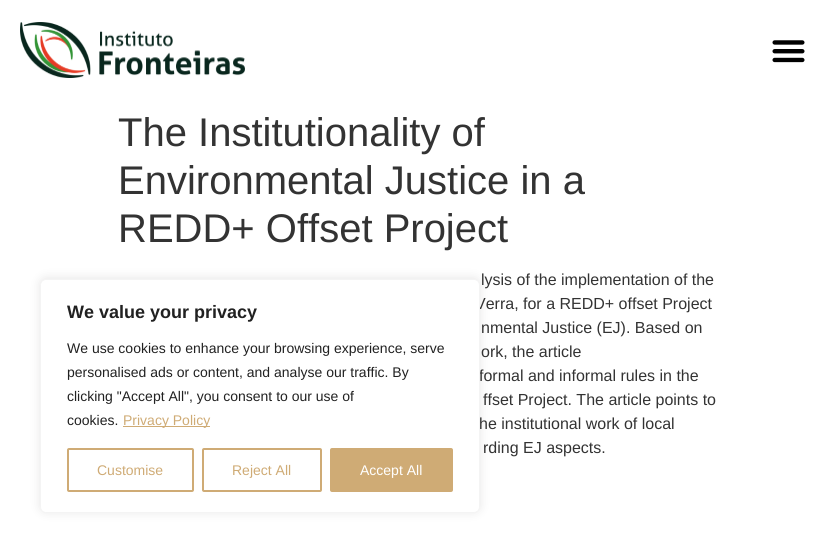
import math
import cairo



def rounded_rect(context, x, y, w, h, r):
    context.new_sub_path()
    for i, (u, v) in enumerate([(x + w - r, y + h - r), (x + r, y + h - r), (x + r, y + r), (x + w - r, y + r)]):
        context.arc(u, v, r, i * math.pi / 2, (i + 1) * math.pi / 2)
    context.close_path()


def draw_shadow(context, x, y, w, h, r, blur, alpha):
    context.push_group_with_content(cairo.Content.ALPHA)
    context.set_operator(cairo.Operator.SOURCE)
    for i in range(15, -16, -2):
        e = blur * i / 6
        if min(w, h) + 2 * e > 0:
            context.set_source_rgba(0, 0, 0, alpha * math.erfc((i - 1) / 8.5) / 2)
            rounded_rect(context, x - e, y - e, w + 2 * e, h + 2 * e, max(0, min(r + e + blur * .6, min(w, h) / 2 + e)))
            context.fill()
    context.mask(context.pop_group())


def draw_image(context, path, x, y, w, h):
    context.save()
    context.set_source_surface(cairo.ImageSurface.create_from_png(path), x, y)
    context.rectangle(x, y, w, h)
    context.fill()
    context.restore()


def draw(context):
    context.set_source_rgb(1, 1, 1)
    context.paint()
    draw_image(context, "images/1.png", 20, 22, 225, 56)
    draw_image(context, "images/2.png", 772, 40, 33, 23)
    context.set_source_rgb(172 / 255, 171 / 255, 171 / 255)
    draw_shadow(context, 40, 278, 440, 234, 6, 5, 0.3)
    context.select_font_face("Liberation Sans")
    context.set_font_size(40)
    context.set_source_rgb(51 / 255, 51 / 255, 51 / 255)
    context.move_to(118, 146)
    context.show_text("The Institutionality of")
    context.move_to(118, 194)
    context.show_text("Environmental Justice in a")
    context.move_to(118, 242)
    context.show_text("REDD+ Offset Project")
    context.set_font_size(16)
    context.move_to(481, 285)
    context.show_text("lysis of the implementation of the")
    context.move_to(475, 309)
    context.show_text("Verra, for a REDD+ offset Project")
    context.move_to(481, 333)
    context.show_text("nmental Justice (EJ). Based on")
    context.move_to(481, 357)
    context.show_text("ork, the article")
    context.move_to(479, 381)
    context.show_text("formal and informal rules in the")
    context.move_to(483, 405)
    context.show_text("ffset Project. The article points to")
    context.move_to(479, 429)
    context.show_text("he institutional work of local")
    context.move_to(483, 453)
    context.show_text("rding EJ aspects.")
    context.set_source_rgb(1, 1, 1)
    rounded_rect(context, 40.5, 279.5, 439, 233, 5.5)
    context.fill_preserve()
    context.set_source_rgb(244 / 255, 244 / 255, 244 / 255)
    context.set_line_width(1)
    context.stroke()
    context.select_font_face("Liberation Sans", cairo.FontSlant.NORMAL, cairo.FontWeight.BOLD)
    context.set_font_size(18)
    context.set_source_rgb(33 / 255, 33 / 255, 33 / 255)
    context.move_to(67, 318)
    context.show_text("We value your privacy")
    context.select_font_face("Liberation Sans")
    context.set_font_size(14)
    context.move_to(67, 353)
    context.show_text("We use cookies to enhance your browsing experience, serve")
    context.move_to(67, 377)
    context.show_text("personalised ads or content, and analyse our traffic. By")
    context.move_to(67, 401)
    context.show_text("clicking \"Accept All\", you consent to our use of")
    context.move_to(67, 425)
    context.show_text("cookies.")
    context.set_source_rgb(207 / 255, 171 / 255, 117 / 255)
    context.rectangle(123, 426, 87, 1)
    context.fill()
    context.move_to(123, 425)
    context.show_text("Privacy Policy")
    rounded_rect(context, 68, 449, 125, 42, 1)
    context.set_line_width(2)
    context.stroke()
    context.move_to(97, 475)
    context.show_text("Customise")
    rounded_rect(context, 203, 449, 118, 42, 1)
    context.stroke()
    context.move_to(232, 475)
    context.show_text("Reject All")
    rounded_rect(context, 331, 449, 121, 42, 1)
    context.fill_preserve()
    context.stroke()
    context.set_source_rgb(1, 1, 1)
    context.move_to(360, 475)
    context.show_text("Accept All")


surface = cairo.ImageSurface(cairo.Format.RGB24, 835, 553)
context = cairo.Context(surface)
options = cairo.FontOptions()
options.set_hint_metrics(cairo.HintMetrics.OFF)
options.set_hint_style(cairo.HintStyle.NONE)
context.set_font_options(options)
context.set_miter_limit(4)
draw(context)
surface.write_to_png("out.png")
